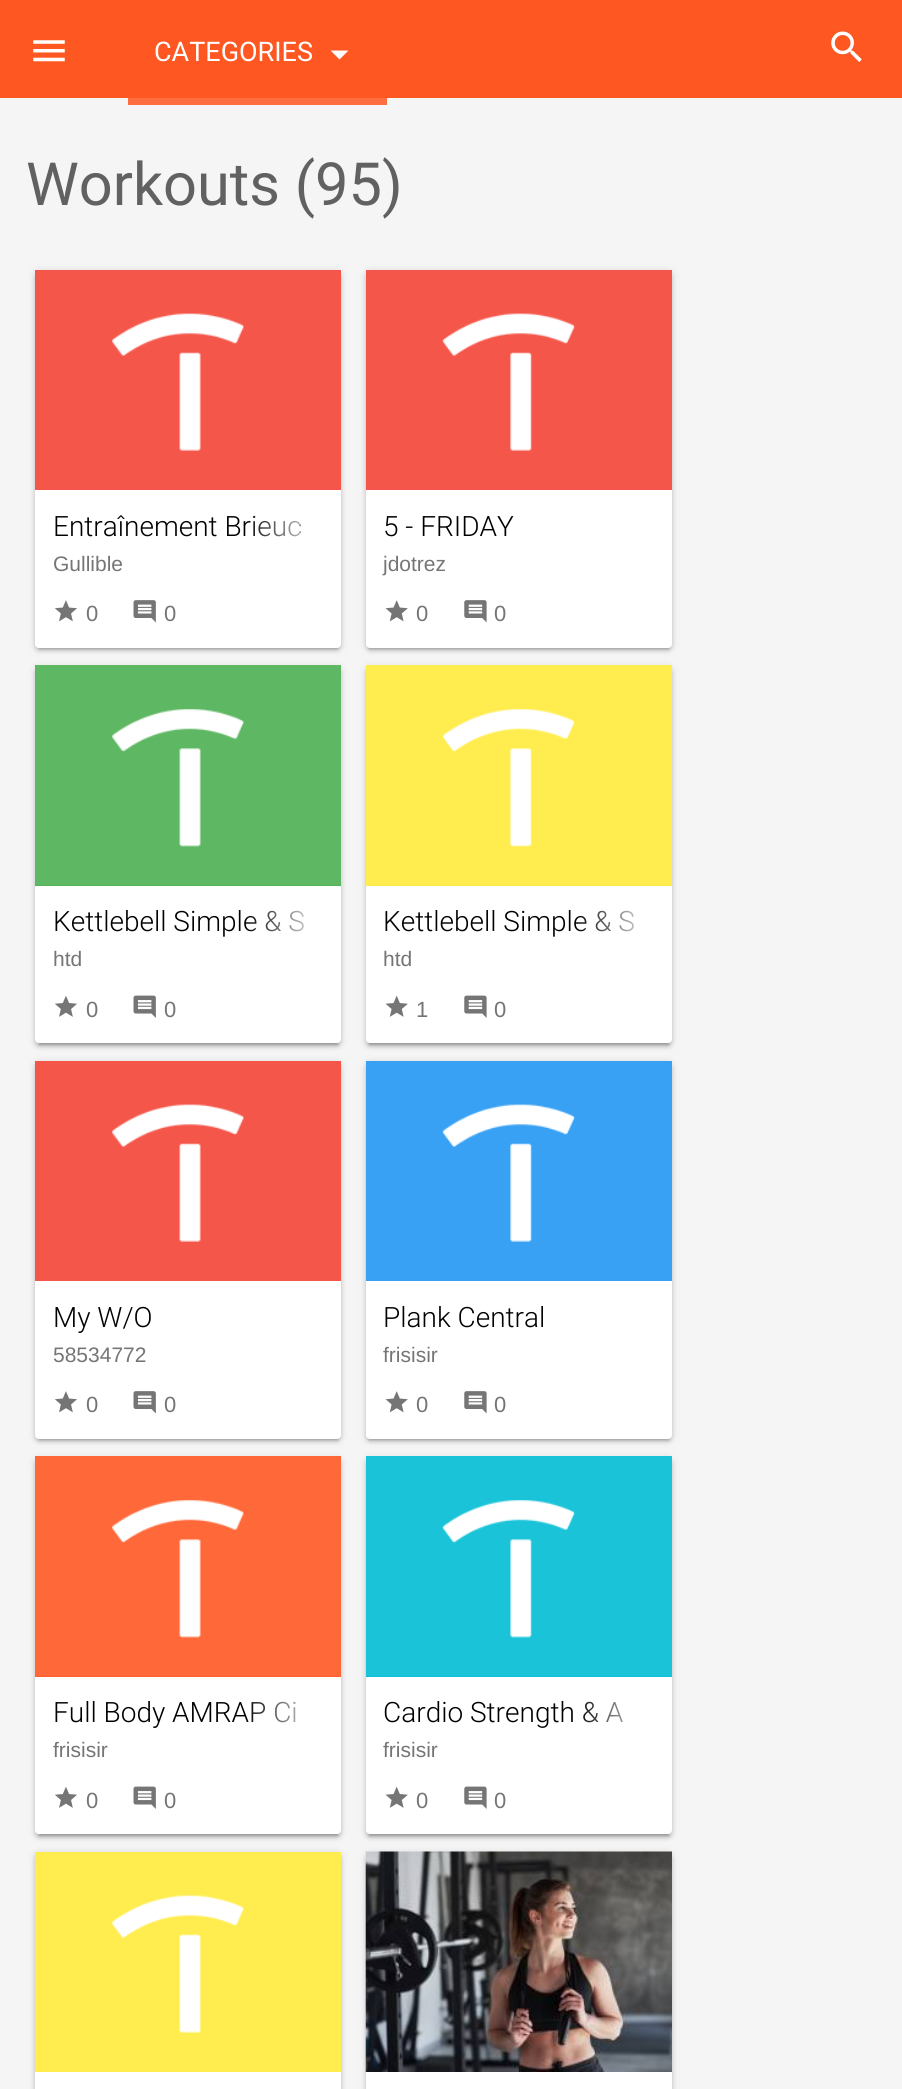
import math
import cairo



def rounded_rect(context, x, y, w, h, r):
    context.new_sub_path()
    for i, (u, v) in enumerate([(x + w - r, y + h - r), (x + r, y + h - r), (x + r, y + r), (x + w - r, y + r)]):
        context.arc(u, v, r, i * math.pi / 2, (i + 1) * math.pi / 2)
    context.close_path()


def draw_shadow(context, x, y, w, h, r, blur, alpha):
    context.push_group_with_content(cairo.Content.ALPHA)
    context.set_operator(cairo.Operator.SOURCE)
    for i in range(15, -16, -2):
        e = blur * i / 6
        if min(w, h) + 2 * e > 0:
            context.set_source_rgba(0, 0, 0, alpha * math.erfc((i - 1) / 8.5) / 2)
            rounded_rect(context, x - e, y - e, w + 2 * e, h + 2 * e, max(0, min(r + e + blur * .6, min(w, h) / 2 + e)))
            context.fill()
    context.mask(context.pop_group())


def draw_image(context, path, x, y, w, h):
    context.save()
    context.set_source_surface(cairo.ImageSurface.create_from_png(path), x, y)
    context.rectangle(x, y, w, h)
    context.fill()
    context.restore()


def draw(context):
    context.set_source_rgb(245 / 255, 245 / 255, 245 / 255)
    context.paint()
    context.set_source_rgb(1, 87 / 255, 34 / 255)
    context.rectangle(0, 0, 902, 98)
    context.fill()
    draw_image(context, "images/1.png", 33, 40, 32, 22)
    context.set_source_rgb(1, 110 / 255, 64 / 255)
    context.rectangle(128, 98, 259, 7)
    context.fill()
    context.set_source_rgb(1, 1, 1)
    context.new_path()
    context.move_to(330.5, 50.5)
    context.line_to(348.5, 50.5)
    context.line_to(339.5, 59.5)
    context.close_path()
    context.fill()
    draw_image(context, "images/2.png", 831, 31, 31, 31)
    context.set_source_rgb(0, 0, 0)
    draw_shadow(context, 35, 271, 306, 378, 4, 4.5, 0.12)
    draw_shadow(context, 39, 278, 299, 371, 0, 1, 0.2)
    draw_shadow(context, 35, 273, 306, 378, 4, 2, 0.14)
    context.set_source_rgb(1, 1, 1)
    rounded_rect(context, 35, 270, 306, 378, 4)
    context.fill()
    context.set_source_rgb(244 / 255, 67 / 255, 54 / 255)
    context.rectangle(35, 270, 306, 220)
    context.fill()
    draw_image(context, "images/3.png", 35, 270, 306, 220)
    draw_image(context, "images/4.png", 55, 600, 22, 22)
    draw_image(context, "images/5.png", 133, 600, 23, 23)
    context.set_source_rgb(0, 0, 0)
    draw_shadow(context, 366, 271, 306, 378, 4, 4.5, 0.12)
    draw_shadow(context, 369, 278, 300, 371, 0, 1, 0.2)
    draw_shadow(context, 366, 273, 306, 378, 4, 2, 0.14)
    context.set_source_rgb(1, 1, 1)
    rounded_rect(context, 366, 270, 306, 378, 4)
    context.fill()
    context.set_source_rgb(244 / 255, 67 / 255, 54 / 255)
    context.rectangle(366, 270, 306, 220)
    context.fill()
    draw_image(context, "images/6.png", 366, 270, 306, 220)
    draw_image(context, "images/7.png", 385, 600, 23, 22)
    draw_image(context, "images/8.png", 464, 600, 23, 23)
    context.set_source_rgb(0, 0, 0)
    draw_shadow(context, 35, 667, 306, 378, 4, 4.5, 0.12)
    draw_shadow(context, 39, 674, 299, 371, 0, 1, 0.2)
    draw_shadow(context, 35, 669, 306, 378, 4, 2, 0.14)
    context.set_source_rgb(1, 1, 1)
    rounded_rect(context, 35, 665, 306, 378, 4)
    context.fill()
    context.set_source_rgb(76 / 255, 175 / 255, 80 / 255)
    context.rectangle(35, 665, 306, 221)
    context.fill()
    draw_image(context, "images/9.png", 35, 665, 306, 221)
    draw_image(context, "images/10.png", 55, 995, 22, 22)
    draw_image(context, "images/11.png", 133, 995, 23, 23)
    context.set_source_rgb(0, 0, 0)
    draw_shadow(context, 366, 667, 306, 378, 4, 4.5, 0.12)
    draw_shadow(context, 369, 674, 300, 371, 0, 1, 0.2)
    draw_shadow(context, 366, 669, 306, 378, 4, 2, 0.14)
    context.set_source_rgb(1, 1, 1)
    rounded_rect(context, 366, 665, 306, 378, 4)
    context.fill()
    context.set_source_rgb(1, 235 / 255, 59 / 255)
    context.rectangle(366, 665, 306, 221)
    context.fill()
    draw_image(context, "images/12.png", 366, 665, 306, 221)
    draw_image(context, "images/13.png", 385, 995, 23, 22)
    draw_image(context, "images/14.png", 464, 995, 23, 23)
    context.set_source_rgb(0, 0, 0)
    draw_shadow(context, 35, 1062, 306, 378, 4, 4.5, 0.12)
    draw_shadow(context, 39, 1069, 299, 371, 0, 1, 0.2)
    draw_shadow(context, 35, 1064, 306, 378, 4, 2, 0.14)
    context.set_source_rgb(1, 1, 1)
    rounded_rect(context, 35, 1061, 306, 378, 4)
    context.fill()
    context.set_source_rgb(244 / 255, 67 / 255, 54 / 255)
    context.rectangle(35, 1061, 306, 220)
    context.fill()
    draw_image(context, "images/3.png", 35, 1061, 306, 220)
    draw_image(context, "images/4.png", 55, 1391, 22, 22)
    draw_image(context, "images/5.png", 133, 1391, 23, 23)
    context.set_source_rgb(0, 0, 0)
    draw_shadow(context, 366, 1062, 306, 378, 4, 4.5, 0.12)
    draw_shadow(context, 369, 1069, 300, 371, 0, 1, 0.2)
    draw_shadow(context, 366, 1064, 306, 378, 4, 2, 0.14)
    context.set_source_rgb(1, 1, 1)
    rounded_rect(context, 366, 1061, 306, 378, 4)
    context.fill()
    context.set_source_rgb(33 / 255, 150 / 255, 243 / 255)
    context.rectangle(366, 1061, 306, 220)
    context.fill()
    draw_image(context, "images/15.png", 366, 1061, 306, 220)
    draw_image(context, "images/7.png", 385, 1391, 23, 22)
    draw_image(context, "images/8.png", 464, 1391, 23, 23)
    context.set_source_rgb(0, 0, 0)
    draw_shadow(context, 35, 1458, 306, 378, 4, 4.5, 0.12)
    draw_shadow(context, 39, 1465, 299, 371, 0, 1, 0.2)
    draw_shadow(context, 35, 1460, 306, 378, 4, 2, 0.14)
    context.set_source_rgb(1, 1, 1)
    rounded_rect(context, 35, 1456, 306, 378, 4)
    context.fill()
    context.set_source_rgb(1, 87 / 255, 34 / 255)
    context.rectangle(35, 1456, 306, 221)
    context.fill()
    draw_image(context, "images/16.png", 35, 1456, 306, 221)
    draw_image(context, "images/10.png", 55, 1786, 22, 22)
    draw_image(context, "images/11.png", 133, 1786, 23, 23)
    context.set_source_rgb(0, 0, 0)
    draw_shadow(context, 366, 1458, 306, 378, 4, 4.5, 0.12)
    draw_shadow(context, 369, 1465, 300, 371, 0, 1, 0.2)
    draw_shadow(context, 366, 1460, 306, 378, 4, 2, 0.14)
    context.set_source_rgb(1, 1, 1)
    rounded_rect(context, 366, 1456, 306, 378, 4)
    context.fill()
    context.set_source_rgb(0, 188 / 255, 212 / 255)
    context.rectangle(366, 1456, 306, 221)
    context.fill()
    draw_image(context, "images/17.png", 366, 1456, 306, 221)
    draw_image(context, "images/13.png", 385, 1786, 23, 22)
    draw_image(context, "images/14.png", 464, 1786, 23, 23)
    context.set_source_rgb(0, 0, 0)
    draw_shadow(context, 35, 1853, 306, 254, 4, 4.5, 0.12)
    draw_shadow(context, 35, 1855, 306, 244, 4, 2, 0.14)
    context.set_source_rgb(1, 1, 1)
    context.rectangle(35, 2072, 306, 17)
    context.fill()
    context.set_source_rgb(1, 235 / 255, 59 / 255)
    context.rectangle(35, 1852, 306, 220)
    context.fill()
    draw_image(context, "images/18.png", 35, 1852, 306, 220)
    context.set_source_rgb(0, 0, 0)
    draw_shadow(context, 366, 1853, 306, 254, 4, 4.5, 0.12)
    draw_shadow(context, 366, 1855, 306, 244, 4, 2, 0.14)
    context.set_source_rgb(1, 1, 1)
    context.rectangle(366, 2072, 306, 17)
    context.fill()
    draw_image(context, "images/19.png", 365, 1851, 307, 221)
    context.select_font_face("Roboto")
    context.set_font_size(27)
    context.move_to(154, 61)
    context.show_text("CATEGORIES")
    context.set_font_size(59.5)
    context.set_source_rgb(97 / 255, 97 / 255, 97 / 255)
    context.move_to(26, 205)
    context.show_text("Workouts (95)")
    context.select_font_face("Roboto Light")
    context.set_font_size(28)
    context.set_source_rgb(0, 0, 0)
    context.move_to(53, 536)
    context.show_text("Entraînement Brieuc")
    gradient = cairo.LinearGradient(245, 527, 324, 527)
    gradient.add_color_stop_rgba(0, 1, 1, 1, 0)
    gradient.add_color_stop_rgba(1, 1, 1, 1, 1)
    context.set_source(gradient)
    context.rectangle(247, 515, 53, 22)
    context.fill()
    context.select_font_face("Liberation Sans")
    context.set_font_size(21)
    context.set_source_rgb(117 / 255, 117 / 255, 117 / 255)
    context.move_to(53, 571)
    context.show_text("Gullible")
    context.set_font_size(22)
    context.move_to(86, 621)
    context.show_text("0")
    context.move_to(164, 621)
    context.show_text("0")
    context.select_font_face("Roboto Light")
    context.set_font_size(28)
    context.set_source_rgb(0, 0, 0)
    context.move_to(383, 536)
    context.show_text("5 - FRIDAY")
    context.select_font_face("Liberation Sans")
    context.set_font_size(21)
    context.set_source_rgb(117 / 255, 117 / 255, 117 / 255)
    context.move_to(383, 571)
    context.show_text("jdotrez")
    context.set_font_size(22)
    context.move_to(416, 621)
    context.show_text("0")
    context.move_to(494, 621)
    context.show_text("0")
    context.select_font_face("Roboto Light")
    context.set_font_size(28)
    context.set_source_rgb(0, 0, 0)
    context.move_to(53, 931)
    context.show_text("Kettlebell Simple & S")
    gradient = cairo.LinearGradient(245, 922, 324, 922)
    gradient.add_color_stop_rgba(0, 1, 1, 1, 0)
    gradient.add_color_stop_rgba(1, 1, 1, 1, 1)
    context.set_source(gradient)
    context.rectangle(247, 910, 57, 22)
    context.fill()
    context.select_font_face("Liberation Sans")
    context.set_font_size(21)
    context.set_source_rgb(117 / 255, 117 / 255, 117 / 255)
    context.move_to(53, 966)
    context.show_text("htd")
    context.set_font_size(22)
    context.move_to(86, 1017)
    context.show_text("0")
    context.move_to(164, 1017)
    context.show_text("0")
    context.select_font_face("Roboto Light")
    context.set_font_size(28)
    context.set_source_rgb(0, 0, 0)
    context.move_to(383, 931)
    context.show_text("Kettlebell Simple & S")
    gradient = cairo.LinearGradient(576, 922, 655, 922)
    gradient.add_color_stop_rgba(0, 1, 1, 1, 0)
    gradient.add_color_stop_rgba(1, 1, 1, 1, 1)
    context.set_source(gradient)
    context.rectangle(578, 910, 56, 22)
    context.fill()
    context.select_font_face("Liberation Sans")
    context.set_font_size(21)
    context.set_source_rgb(117 / 255, 117 / 255, 117 / 255)
    context.move_to(383, 966)
    context.show_text("htd")
    context.set_font_size(22)
    context.move_to(416, 1017)
    context.show_text("1")
    context.move_to(494, 1017)
    context.show_text("0")
    context.select_font_face("Roboto Light")
    context.set_font_size(28)
    context.set_source_rgb(0, 0, 0)
    context.move_to(53, 1327)
    context.show_text("My W/O")
    context.select_font_face("Liberation Sans")
    context.set_font_size(21)
    context.set_source_rgb(117 / 255, 117 / 255, 117 / 255)
    context.move_to(53, 1362)
    context.show_text("58534772")
    context.set_font_size(22)
    context.move_to(86, 1412)
    context.show_text("0")
    context.move_to(164, 1412)
    context.show_text("0")
    context.select_font_face("Roboto Light")
    context.set_font_size(28)
    context.set_source_rgb(0, 0, 0)
    context.move_to(383, 1327)
    context.show_text("Plank Central")
    context.select_font_face("Liberation Sans")
    context.set_font_size(21)
    context.set_source_rgb(117 / 255, 117 / 255, 117 / 255)
    context.move_to(383, 1362)
    context.show_text("frisisir")
    context.set_font_size(22)
    context.move_to(416, 1412)
    context.show_text("0")
    context.move_to(494, 1412)
    context.show_text("0")
    context.select_font_face("Roboto Light")
    context.set_font_size(28)
    context.set_source_rgb(0, 0, 0)
    context.move_to(53, 1722)
    context.show_text("Full Body AMRAP Ci")
    gradient = cairo.LinearGradient(245, 1713, 324, 1713)
    gradient.add_color_stop_rgba(0, 1, 1, 1, 0)
    gradient.add_color_stop_rgba(1, 1, 1, 1, 1)
    context.set_source(gradient)
    context.rectangle(247, 1701, 49, 22)
    context.fill()
    context.select_font_face("Liberation Sans")
    context.set_font_size(21)
    context.set_source_rgb(117 / 255, 117 / 255, 117 / 255)
    context.move_to(53, 1757)
    context.show_text("frisisir")
    context.set_font_size(22)
    context.move_to(86, 1808)
    context.show_text("0")
    context.move_to(164, 1808)
    context.show_text("0")
    context.select_font_face("Roboto Light")
    context.set_font_size(28)
    context.set_source_rgb(0, 0, 0)
    context.move_to(383, 1722)
    context.show_text("Cardio Strength & A")
    gradient = cairo.LinearGradient(576, 1713, 655, 1713)
    gradient.add_color_stop_rgba(0, 1, 1, 1, 0)
    gradient.add_color_stop_rgba(1, 1, 1, 1, 1)
    context.set_source(gradient)
    context.rectangle(583, 1701, 40, 22)
    context.fill()
    context.select_font_face("Liberation Sans")
    context.set_font_size(21)
    context.set_source_rgb(117 / 255, 117 / 255, 117 / 255)
    context.move_to(383, 1757)
    context.show_text("frisisir")
    context.set_font_size(22)
    context.move_to(416, 1808)
    context.show_text("0")
    context.move_to(494, 1808)
    context.show_text("0")


surface = cairo.ImageSurface(cairo.Format.RGB24, 902, 2089)
context = cairo.Context(surface)
options = cairo.FontOptions()
options.set_hint_metrics(cairo.HintMetrics.OFF)
options.set_hint_style(cairo.HintStyle.NONE)
context.set_font_options(options)
context.set_miter_limit(4)
draw(context)
surface.write_to_png("out.png")
